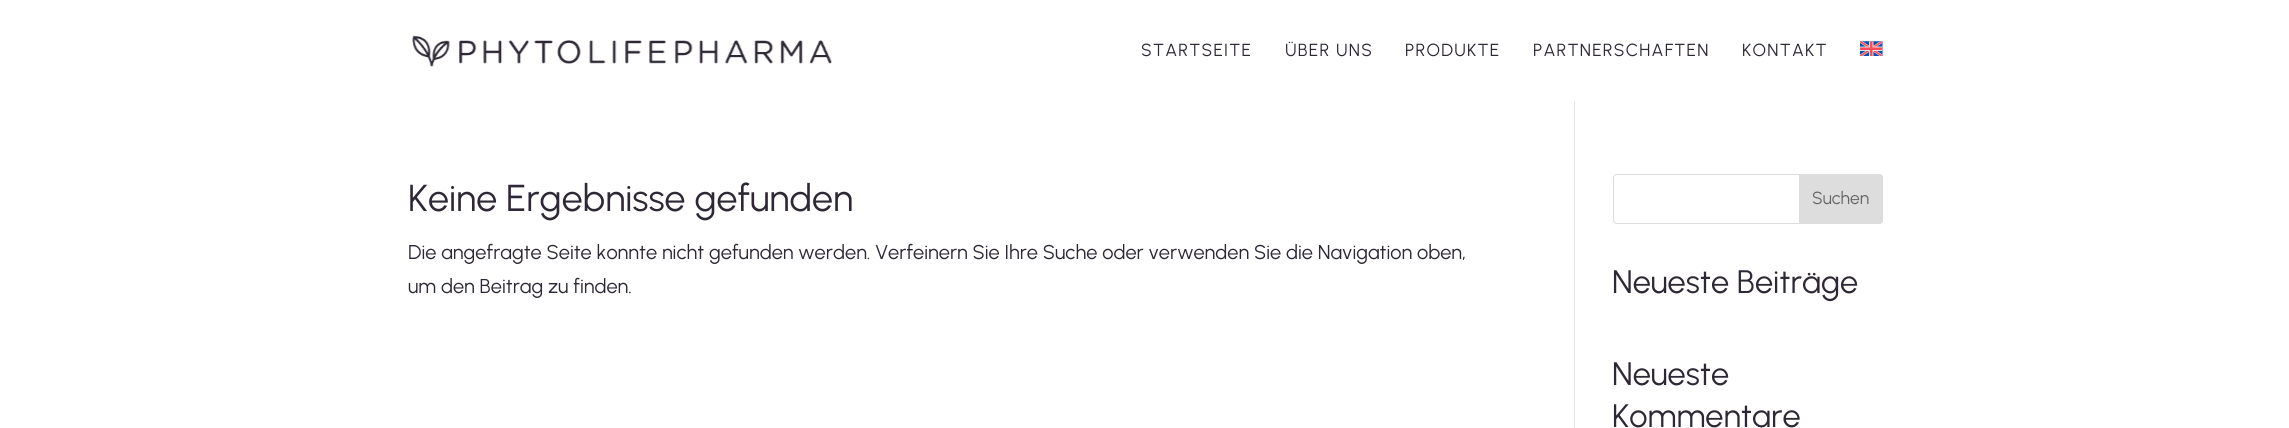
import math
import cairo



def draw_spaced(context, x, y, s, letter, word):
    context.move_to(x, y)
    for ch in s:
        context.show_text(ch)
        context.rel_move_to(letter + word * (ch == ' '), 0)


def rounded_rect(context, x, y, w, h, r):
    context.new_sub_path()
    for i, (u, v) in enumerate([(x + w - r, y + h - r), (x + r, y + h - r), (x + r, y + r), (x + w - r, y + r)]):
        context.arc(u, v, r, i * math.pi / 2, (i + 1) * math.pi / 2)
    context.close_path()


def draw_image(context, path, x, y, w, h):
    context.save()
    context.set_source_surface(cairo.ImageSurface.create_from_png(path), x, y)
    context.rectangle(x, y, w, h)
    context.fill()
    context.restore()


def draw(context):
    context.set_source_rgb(1, 1, 1)
    context.paint()
    draw_image(context, "images/1.png", 412, 35, 420, 32)
    draw_image(context, "images/2.png", 1860, 41, 23, 15)
    context.set_source_rgb(226 / 255, 226 / 255, 226 / 255)
    context.rectangle(1574, 101, 1, 327)
    context.fill()
    rounded_rect(context, 1613.5, 174.5, 269, 49, 3.5)
    context.set_source_rgb(221 / 255, 221 / 255, 221 / 255)
    context.set_line_width(1)
    context.stroke()
    context.new_path()
    context.move_to(1799.5, 174.5)
    context.line_to(1879, 174.5)
    context.curve_to(1881, 174.5, 1882.5, 176, 1882.5, 178)
    context.line_to(1882.5, 220)
    context.curve_to(1882.5, 222, 1881, 223.5, 1879, 223.5)
    context.line_to(1799.5, 223.5)
    context.close_path()
    context.fill_preserve()
    context.stroke()
    context.select_font_face("Urbanist")
    context.set_font_size(17.5)
    context.set_source_rgb(46 / 255, 40 / 255, 54 / 255)
    draw_spaced(context, 1141, 56, "STARTSEITE", 1.25, 0)
    draw_spaced(context, 1285, 56, "ÜBER UNS", 1.25, 0)
    draw_spaced(context, 1405, 56, "PRODUKTE", 1.25, 0)
    draw_spaced(context, 1533, 56, "PARTNERSCHAFTEN", 1.25, 0)
    draw_spaced(context, 1742, 56, "KONTAKT", 1.25, 0)
    context.set_font_size(37.5)
    context.move_to(408, 211)
    context.show_text("Keine Ergebnisse gefunden")
    context.set_font_size(20)
    context.move_to(408, 259)
    context.show_text("Die angefragte Seite konnte nicht gefunden werden. Verfeinern Sie Ihre Suche oder verwenden Sie die Navigation oben,")
    context.move_to(408, 293)
    context.show_text("um den Beitrag zu finden.")
    context.set_font_size(17.5)
    context.set_source_rgb(102 / 255, 102 / 255, 102 / 255)
    context.move_to(1812, 204)
    context.show_text("Suchen")
    context.set_font_size(32.5)
    context.set_source_rgb(46 / 255, 40 / 255, 54 / 255)
    context.move_to(1612, 293)
    context.show_text("Neueste Beiträge")
    context.move_to(1612, 385)
    context.show_text("Neueste")
    context.move_to(1612, 427)
    context.show_text("Kommentare")


surface = cairo.ImageSurface(cairo.Format.RGB24, 2289, 428)
context = cairo.Context(surface)
options = cairo.FontOptions()
options.set_hint_metrics(cairo.HintMetrics.OFF)
options.set_hint_style(cairo.HintStyle.NONE)
context.set_font_options(options)
context.set_miter_limit(4)
draw(context)
surface.write_to_png("out.png")
